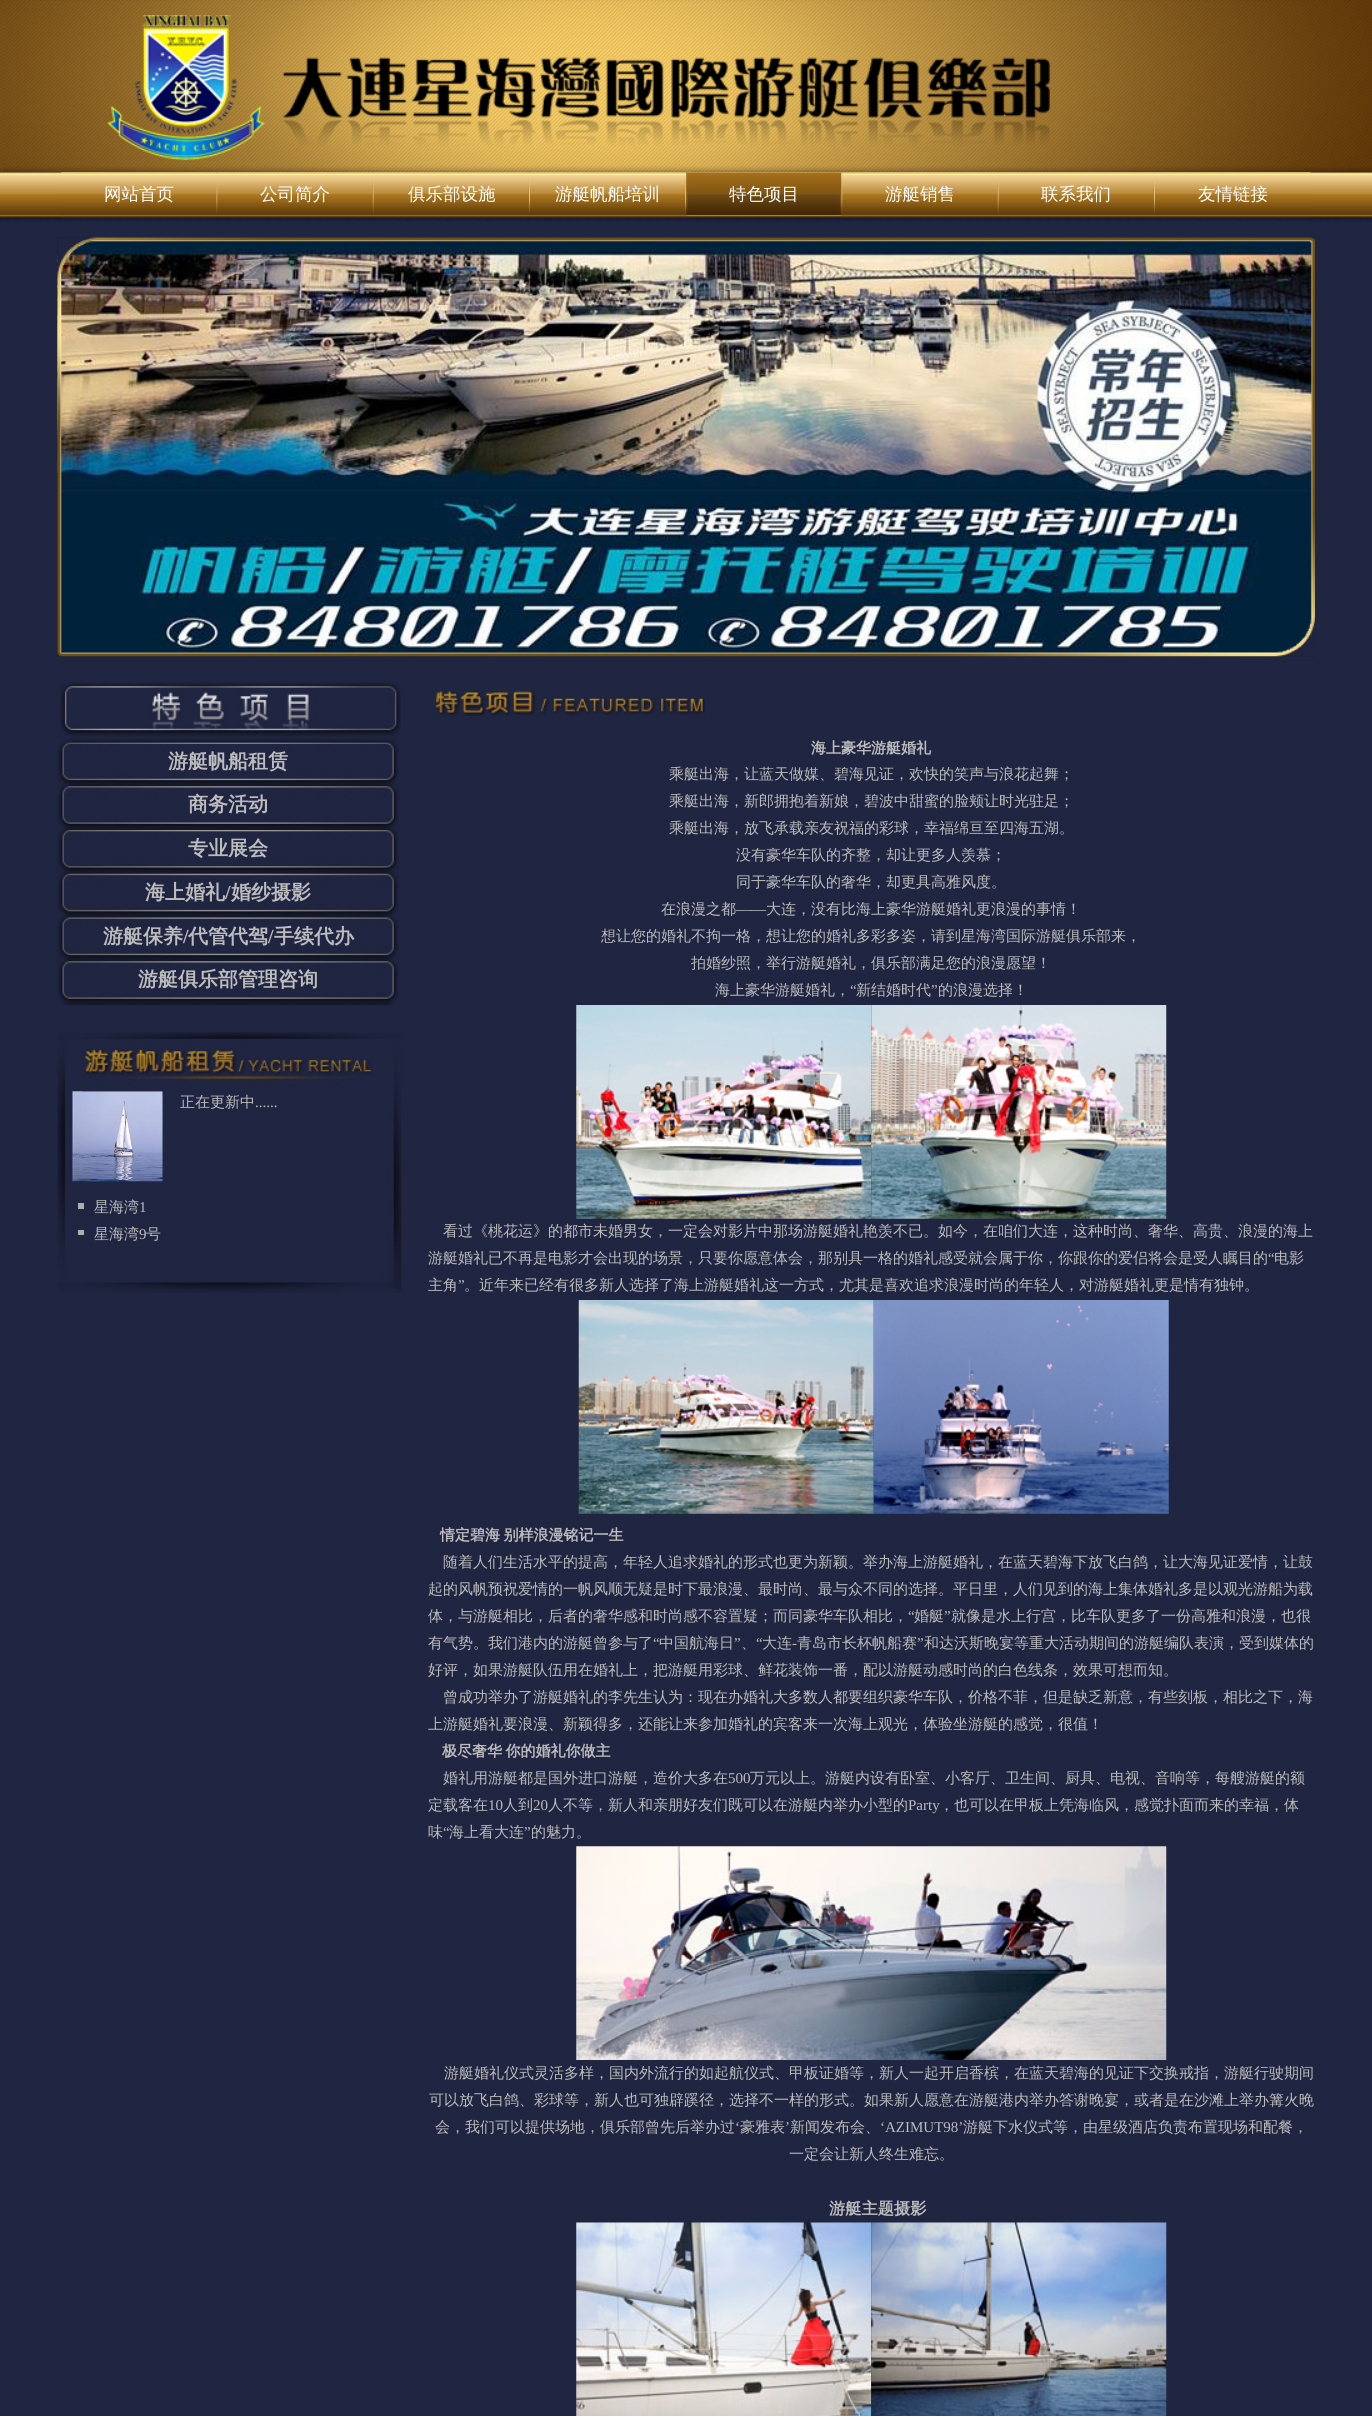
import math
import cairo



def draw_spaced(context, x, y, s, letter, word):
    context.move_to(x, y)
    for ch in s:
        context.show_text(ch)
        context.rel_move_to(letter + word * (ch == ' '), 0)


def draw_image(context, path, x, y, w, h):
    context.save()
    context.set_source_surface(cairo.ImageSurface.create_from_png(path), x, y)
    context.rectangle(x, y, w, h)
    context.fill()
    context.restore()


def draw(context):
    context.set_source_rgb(32 / 255, 37 / 255, 65 / 255)
    context.paint()
    draw_image(context, "images/1.png", 0, 0, 1372, 173)
    draw_image(context, "images/2.png", 107, 15, 943, 146)
    draw_image(context, "images/3.png", 0, 172, 1372, 50)
    draw_image(context, "images/4.png", 61, 172, 1251, 46)
    draw_image(context, "images/5.png", 61, 172, 156, 46)
    draw_image(context, "images/6.png", 217, 172, 156, 46)
    draw_image(context, "images/7.png", 373, 172, 156, 46)
    draw_image(context, "images/8.png", 530, 172, 155, 46)
    draw_image(context, "images/9.png", 686, 172, 156, 46)
    draw_image(context, "images/10.png", 686, 172, 156, 46)
    draw_image(context, "images/11.png", 842, 172, 156, 46)
    draw_image(context, "images/12.png", 998, 172, 156, 46)
    draw_image(context, "images/13.png", 1155, 172, 155, 46)
    draw_image(context, "images/14.png", 57, 237, 1258, 420)
    draw_image(context, "images/15.png", 57, 237, 1258, 420)
    draw_image(context, "images/17.png", 57, 742, 342, 45)
    draw_image(context, "images/16.png", 60, 682, 341, 61)
    draw_image(context, "images/18.png", 57, 786, 342, 44)
    draw_image(context, "images/19.png", 57, 830, 342, 44)
    draw_image(context, "images/20.png", 57, 873, 342, 45)
    draw_image(context, "images/21.png", 57, 917, 342, 45)
    draw_image(context, "images/18.png", 57, 961, 342, 44)
    draw_image(context, "images/22.png", 57, 1032, 345, 261)
    draw_image(context, "images/24.png", 72, 1091, 91, 91)
    draw_image(context, "images/23.png", 82, 1049, 291, 43)
    context.set_source_rgb(174 / 255, 174 / 255, 174 / 255)
    context.rectangle(78, 1203, 6, 6)
    context.fill()
    context.rectangle(78, 1230, 6, 5)
    context.fill()
    draw_image(context, "images/25.png", 435, 691, 270, 25)
    draw_image(context, "images/26.png", 576, 1005, 296, 214)
    draw_image(context, "images/27.png", 871, 1005, 296, 214)
    draw_image(context, "images/28.png", 578, 1300, 296, 214)
    draw_image(context, "images/29.png", 873, 1300, 296, 214)
    draw_image(context, "images/30.png", 576, 1846, 591, 214)
    draw_image(context, "images/31.png", 576, 2222, 296, 194)
    draw_image(context, "images/32.png", 871, 2222, 296, 194)
    context.select_font_face("WenQuanYi Zen Hei Medium")
    context.set_font_size(17.5)
    context.set_source_rgb(1, 1, 1)
    context.move_to(104, 200)
    context.show_text("网站首页")
    context.move_to(260, 200)
    context.show_text("公司简介")
    context.move_to(408, 200)
    context.show_text("俱乐部设施")
    context.move_to(555, 200)
    context.show_text("游艇帆船培训")
    context.move_to(729, 200)
    context.show_text("特色项目")
    context.move_to(885, 200)
    context.show_text("游艇销售")
    context.move_to(1041, 200)
    context.show_text("联系我们")
    context.move_to(1198, 200)
    context.show_text("友情链接")
    context.select_font_face("WenQuanYi Zen Hei", cairo.FontSlant.NORMAL, cairo.FontWeight.BOLD)
    context.set_font_size(20)
    context.set_source_rgb(189 / 255, 189 / 255, 189 / 255)
    context.move_to(168, 768)
    context.show_text("游艇帆船租赁")
    context.move_to(188, 811)
    context.show_text("商务活动")
    context.move_to(188, 855)
    context.show_text("专业展会")
    context.move_to(145, 899)
    context.show_text("海上婚礼")
    context.select_font_face("Liberation Serif", cairo.FontSlant.NORMAL, cairo.FontWeight.BOLD)
    context.move_to(225, 899)
    context.show_text("/")
    context.select_font_face("WenQuanYi Zen Hei", cairo.FontSlant.NORMAL, cairo.FontWeight.BOLD)
    context.move_to(231, 899)
    context.show_text("婚纱摄影")
    context.move_to(103, 943)
    context.show_text("游艇保养")
    context.select_font_face("Liberation Serif", cairo.FontSlant.NORMAL, cairo.FontWeight.BOLD)
    context.move_to(183, 943)
    context.show_text("/")
    context.select_font_face("WenQuanYi Zen Hei", cairo.FontSlant.NORMAL, cairo.FontWeight.BOLD)
    context.move_to(188, 943)
    context.show_text("代管代驾")
    context.select_font_face("Liberation Serif", cairo.FontSlant.NORMAL, cairo.FontWeight.BOLD)
    context.move_to(268, 943)
    context.show_text("/")
    context.select_font_face("WenQuanYi Zen Hei", cairo.FontSlant.NORMAL, cairo.FontWeight.BOLD)
    context.move_to(274, 943)
    context.show_text("手续代办")
    context.move_to(138, 986)
    context.show_text("游艇俱乐部管理咨询")
    context.select_font_face("WenQuanYi Zen Hei Medium")
    context.set_font_size(15)
    context.move_to(180, 1107)
    context.show_text("正在更新中")
    context.select_font_face("Liberation Serif")
    context.move_to(255, 1107)
    context.show_text("......")
    context.select_font_face("WenQuanYi Zen Hei Medium")
    context.move_to(94, 1212)
    context.show_text("星海湾")
    context.select_font_face("Liberation Serif")
    context.move_to(139, 1212)
    context.show_text("1")
    context.select_font_face("WenQuanYi Zen Hei Medium")
    context.move_to(94, 1239)
    context.show_text("星海湾")
    context.select_font_face("Liberation Serif")
    context.move_to(139, 1239)
    context.show_text("9")
    context.select_font_face("WenQuanYi Zen Hei Medium")
    context.move_to(146, 1239)
    context.show_text("号")
    context.select_font_face("WenQuanYi Zen Hei", cairo.FontSlant.NORMAL, cairo.FontWeight.BOLD)
    context.move_to(811, 753)
    context.show_text("海上豪华游艇婚礼")
    context.select_font_face("WenQuanYi Zen Hei Medium")
    context.move_to(669, 779)
    context.show_text("乘艇出海，让蓝天做媒、碧海见证，欢快的笑声与浪花起舞；")
    context.move_to(669, 806)
    context.show_text("乘艇出海，新郎拥抱着新娘，碧波中甜蜜的脸颊让时光驻足；")
    context.move_to(669, 833)
    context.show_text("乘艇出海，放飞承载亲友祝福的彩球，幸福绵亘至四海五湖。")
    context.move_to(736, 860)
    context.show_text("没有豪华车队的齐整，却让更多人羡慕；")
    context.move_to(736, 887)
    context.show_text("同于豪华车队的奢华，却更具高雅风度。")
    context.move_to(661, 914)
    context.show_text("在浪漫之都")
    context.select_font_face("Liberation Serif")
    context.move_to(736, 914)
    context.show_text("——")
    context.select_font_face("WenQuanYi Zen Hei Medium")
    context.move_to(766, 914)
    context.show_text("大连，没有比海上豪华游艇婚礼更浪漫的事情！")
    context.move_to(601, 941)
    context.show_text("想让您的婚礼不拘一格，想让您的婚礼多彩多姿，请到星海湾国际游艇俱乐部来，")
    context.move_to(691, 968)
    context.show_text("拍婚纱照，举行游艇婚礼，俱乐部满足您的浪漫愿望！")
    context.move_to(715, 995)
    context.show_text("海上豪华游艇婚礼，")
    context.select_font_face("Liberation Serif")
    context.move_to(850, 995)
    context.show_text("“")
    context.select_font_face("WenQuanYi Zen Hei Medium")
    context.move_to(856, 995)
    context.show_text("新结婚时代")
    context.select_font_face("Liberation Serif")
    context.move_to(931, 995)
    context.show_text("”")
    context.select_font_face("WenQuanYi Zen Hei Medium")
    context.move_to(938, 995)
    context.show_text("的浪漫选择！")
    context.move_to(443, 1236)
    context.show_text("看过《桃花运》的都市未婚男女，一定会对影片中那场游艇婚礼艳羡不已。如今，在咱们大连，这种时尚、奢华、高贵、浪漫的海上")
    context.move_to(428, 1263)
    context.show_text("游艇婚礼已不再是电影才会出现的场景，只要你愿意体会，那别具一格的婚礼感受就会属于你，你跟你的爱侣将会是受人瞩目的")
    context.select_font_face("Liberation Serif")
    context.move_to(1268, 1263)
    context.show_text("“")
    context.select_font_face("WenQuanYi Zen Hei Medium")
    context.move_to(1274, 1263)
    context.show_text("电影")
    context.move_to(428, 1290)
    context.show_text("主角")
    context.select_font_face("Liberation Serif")
    context.move_to(458, 1290)
    context.show_text("”")
    context.select_font_face("WenQuanYi Zen Hei Medium")
    context.move_to(464, 1290)
    context.show_text("。近年来已经有很多新人选择了海上游艇婚礼这一方式，尤其是喜欢追求浪漫时尚的年轻人，对游艇婚礼更是情有独钟。")
    context.select_font_face("WenQuanYi Zen Hei", cairo.FontSlant.NORMAL, cairo.FontWeight.BOLD)
    draw_spaced(context, 440, 1540, "情定碧海 别样浪漫铭记一生", 0, -1)
    context.select_font_face("WenQuanYi Zen Hei Medium")
    context.move_to(443, 1567)
    context.show_text("随着人们生活水平的提高，年轻人追求婚礼的形式也更为新颖。举办海上游艇婚礼，在蓝天碧海下放飞白鸽，让大海见证爱情，让鼓")
    context.move_to(428, 1594)
    context.show_text("起的风帆预祝爱情的一帆风顺无疑是时下最浪漫、最时尚、最与众不同的选择。平日里，人们见到的海上集体婚礼多是以观光游船为载")
    context.move_to(428, 1621)
    context.show_text("体，与游艇相比，后者的奢华感和时尚感不容置疑；而同豪华车队相比，")
    context.select_font_face("Liberation Serif")
    context.move_to(908, 1621)
    context.show_text("“")
    context.select_font_face("WenQuanYi Zen Hei Medium")
    context.move_to(914, 1621)
    context.show_text("婚艇")
    context.select_font_face("Liberation Serif")
    context.move_to(944, 1621)
    context.show_text("”")
    context.select_font_face("WenQuanYi Zen Hei Medium")
    context.move_to(951, 1621)
    context.show_text("就像是水上行宫，比车队更多了一份高雅和浪漫，也很")
    context.move_to(428, 1648)
    context.show_text("有气势。我们港内的游艇曾参与了")
    context.select_font_face("Liberation Serif")
    context.move_to(653, 1648)
    context.show_text("“")
    context.select_font_face("WenQuanYi Zen Hei Medium")
    context.move_to(659, 1648)
    context.show_text("中国航海日")
    context.select_font_face("Liberation Serif")
    context.move_to(734, 1648)
    context.show_text("”")
    context.move_to(756, 1648)
    context.show_text("“")
    context.select_font_face("WenQuanYi Zen Hei Medium")
    context.move_to(762, 1648)
    context.show_text("大连")
    context.move_to(797, 1648)
    context.show_text("青岛市长杯帆船赛")
    context.select_font_face("Liberation Serif")
    context.move_to(917, 1648)
    context.show_text("”")
    context.select_font_face("WenQuanYi Zen Hei Medium")
    context.move_to(924, 1648)
    context.show_text("和达沃斯晚宴等重大活动期间的游艇编队表演，受到媒体的")
    context.select_font_face("Liberation Serif")
    context.move_to(792, 1648)
    context.show_text("-")
    context.select_font_face("WenQuanYi Zen Hei Medium")
    context.move_to(741, 1648)
    context.show_text("、")
    context.move_to(428, 1675)
    context.show_text("好评，如果游艇队伍用在婚礼上，把游艇用彩球、鲜花装饰一番，配以游艇动感时尚的白色线条，效果可想而知。")
    context.move_to(443, 1702)
    context.show_text("曾成功举办了游艇婚礼的李先生认为：现在办婚礼大多数人都要组织豪华车队，价格不菲，但是缺乏新意，有些刻板，相比之下，海")
    context.move_to(428, 1729)
    context.show_text("上游艇婚礼要浪漫、新颖得多，还能让来参加婚礼的宾客来一次海上观光，体验坐游艇的感觉，很值！")
    context.select_font_face("WenQuanYi Zen Hei", cairo.FontSlant.NORMAL, cairo.FontWeight.BOLD)
    draw_spaced(context, 442, 1756, "极尽奢华 你的婚礼你做主", 0, -1)
    context.select_font_face("WenQuanYi Zen Hei Medium")
    context.move_to(443, 1783)
    context.show_text("婚礼用游艇都是国外进口游艇，造价大多在")
    context.select_font_face("Liberation Serif")
    context.move_to(728, 1783)
    context.show_text("500")
    context.select_font_face("WenQuanYi Zen Hei Medium")
    context.move_to(750, 1783)
    context.show_text("万元以上。游艇内设有卧室、小客厅、卫生间、厨具、电视、音响等，每艘游艇的额")
    context.move_to(428, 1810)
    context.show_text("定载客在")
    context.select_font_face("Liberation Serif")
    context.move_to(488, 1810)
    context.show_text("10")
    context.select_font_face("WenQuanYi Zen Hei Medium")
    context.move_to(503, 1810)
    context.show_text("人到")
    context.select_font_face("Liberation Serif")
    context.move_to(533, 1810)
    context.show_text("20")
    context.select_font_face("WenQuanYi Zen Hei Medium")
    context.move_to(548, 1810)
    context.show_text("人不等，新人和亲朋好友们既可以在游艇内举办小型的")
    context.select_font_face("Liberation Serif")
    context.move_to(908, 1810)
    context.show_text("Party")
    context.select_font_face("WenQuanYi Zen Hei Medium")
    context.move_to(939, 1810)
    context.show_text("，也可以在甲板上凭海临风，感觉扑面而来的幸福，体")
    context.move_to(428, 1837)
    context.show_text("味")
    context.select_font_face("Liberation Serif")
    context.move_to(443, 1837)
    context.show_text("“")
    context.select_font_face("WenQuanYi Zen Hei Medium")
    context.move_to(449, 1837)
    context.show_text("海上看大连")
    context.select_font_face("Liberation Serif")
    context.move_to(524, 1837)
    context.show_text("”")
    context.select_font_face("WenQuanYi Zen Hei Medium")
    context.move_to(531, 1837)
    context.show_text("的魅力。")
    context.move_to(444, 2078)
    context.show_text("游艇婚礼仪式灵活多样，国内外流行的如起航仪式、甲板证婚等，新人一起开启香槟，在蓝天碧海的见证下交换戒指，游艇行驶期间")
    context.move_to(429, 2105)
    context.show_text("可以放飞白鸽、彩球等，新人也可独辟蹊径，选择不一样的形式。如果新人愿意在游艇港内举办答谢晚宴，或者是在沙滩上举办篝火晚")
    context.move_to(435, 2132)
    context.show_text("会，我们可以提供场地，俱乐部曾先后举办过")
    context.select_font_face("Liberation Serif")
    context.move_to(735, 2132)
    context.show_text("‘")
    context.select_font_face("WenQuanYi Zen Hei Medium")
    context.move_to(740, 2132)
    context.show_text("豪雅表")
    context.select_font_face("Liberation Serif")
    context.move_to(785, 2132)
    context.show_text("’")
    context.select_font_face("WenQuanYi Zen Hei Medium")
    context.move_to(790, 2132)
    context.show_text("新闻发布会、")
    context.select_font_face("Liberation Serif")
    context.move_to(880, 2132)
    context.show_text("‘AZIMUT98’")
    context.select_font_face("WenQuanYi Zen Hei Medium")
    context.move_to(963, 2132)
    context.show_text("游艇下水仪式等，由星级酒店负责布置现场和配餐，")
    context.move_to(789, 2159)
    context.show_text("一定会让新人终生难忘。")
    context.select_font_face("WenQuanYi Zen Hei", cairo.FontSlant.NORMAL, cairo.FontWeight.BOLD)
    context.set_font_size(16.25)
    context.move_to(829, 2214)
    context.show_text("游艇主题摄影")


surface = cairo.ImageSurface(cairo.Format.RGB24, 1372, 2416)
context = cairo.Context(surface)
options = cairo.FontOptions()
options.set_hint_metrics(cairo.HintMetrics.OFF)
options.set_hint_style(cairo.HintStyle.NONE)
context.set_font_options(options)
context.set_miter_limit(4)
draw(context)
surface.write_to_png("out.png")
